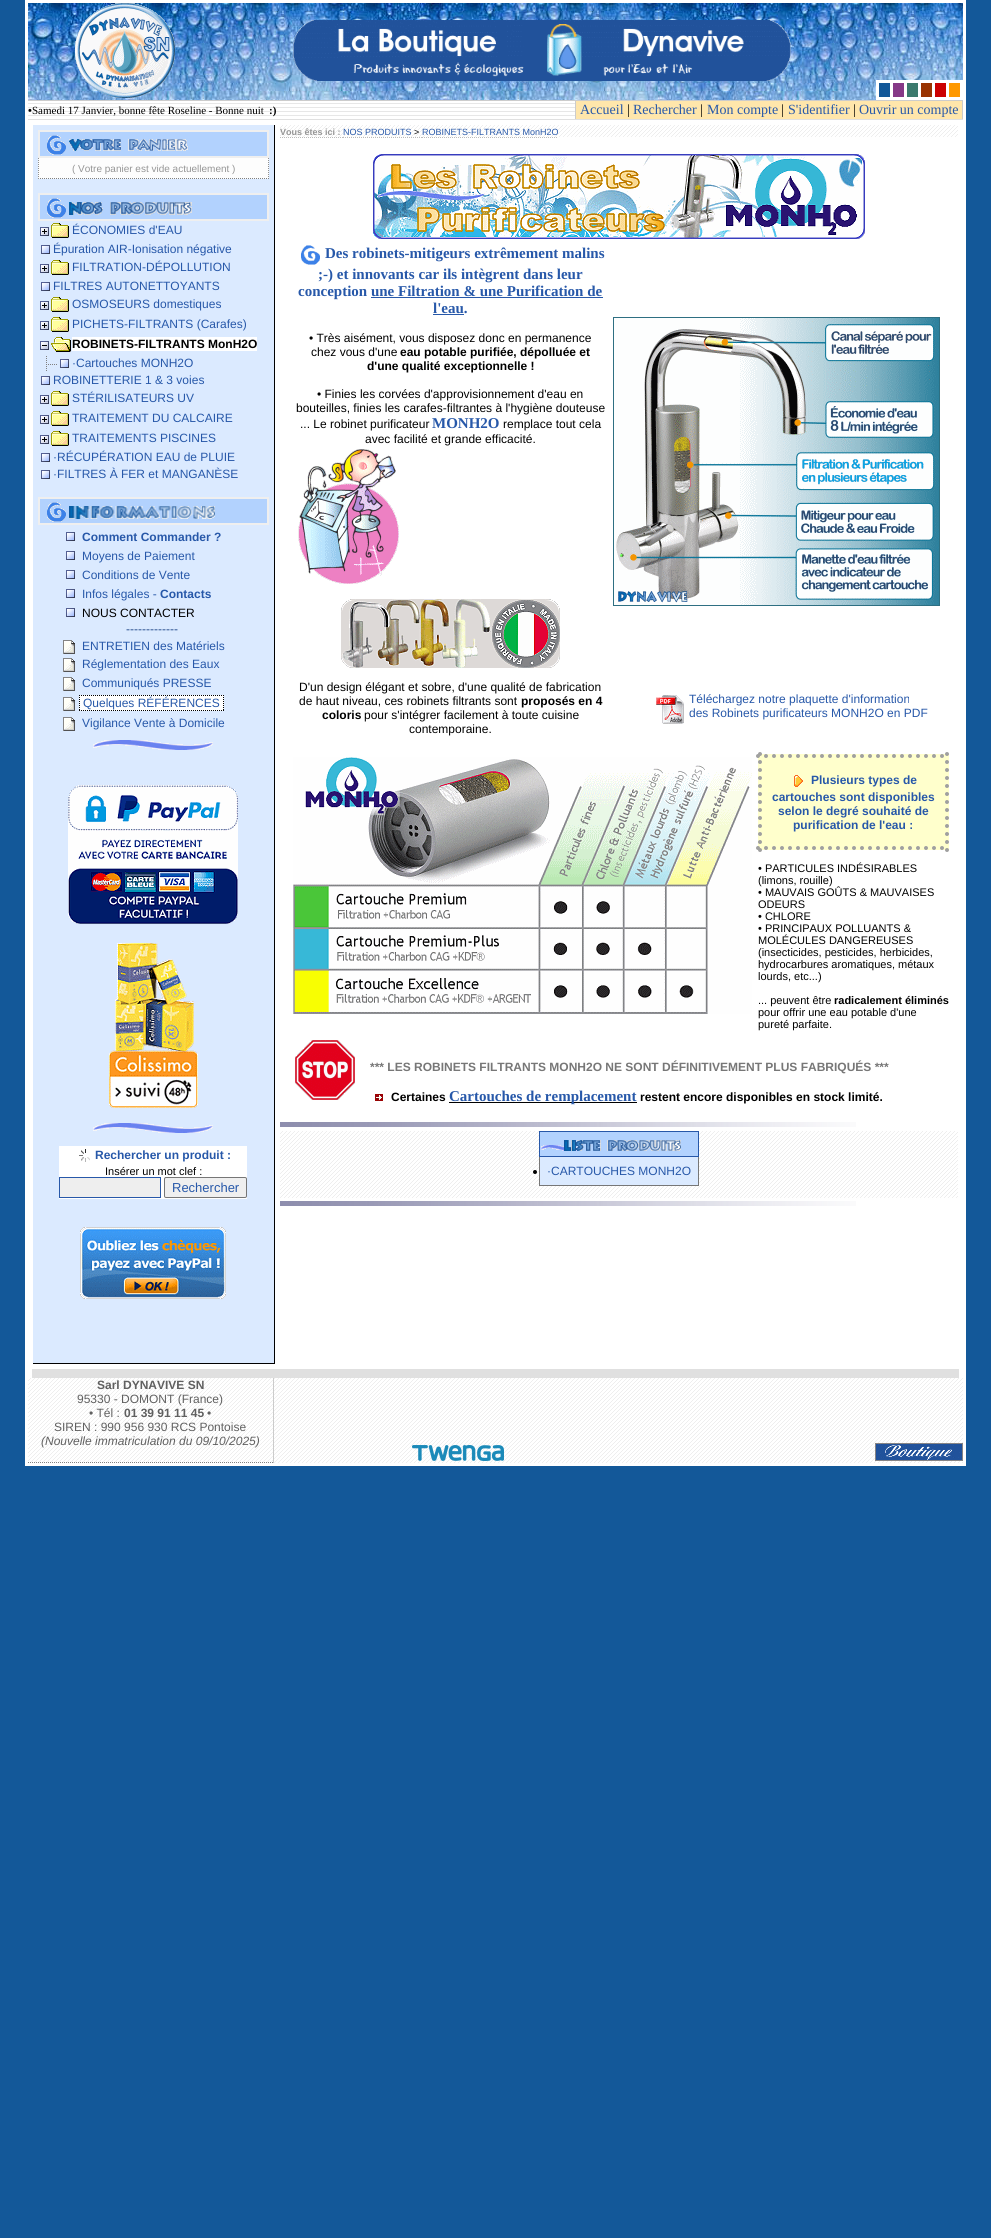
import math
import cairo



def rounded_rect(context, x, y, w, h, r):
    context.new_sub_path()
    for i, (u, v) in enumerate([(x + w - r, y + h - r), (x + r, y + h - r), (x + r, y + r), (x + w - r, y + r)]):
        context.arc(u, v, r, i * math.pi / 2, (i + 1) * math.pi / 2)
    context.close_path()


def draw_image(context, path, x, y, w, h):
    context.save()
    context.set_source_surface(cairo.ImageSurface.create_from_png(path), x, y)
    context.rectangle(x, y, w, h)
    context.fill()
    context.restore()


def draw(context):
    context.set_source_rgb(19 / 255, 88 / 255, 153 / 255)
    context.paint()
    context.set_source_rgb(1, 1, 1)
    context.rectangle(25, 0, 941, 1466)
    context.fill()
    draw_image(context, "images/1.png", 28, 3, 935, 97)
    draw_image(context, "images/2.png", 75, 3, 100, 95)
    draw_image(context, "images/3.png", 293, 20, 498, 61)
    context.rectangle(876, 80, 87, 20)
    context.fill()
    context.set_source_rgb(19 / 255, 88 / 255, 153 / 255)
    context.rectangle(879, 83, 11, 14)
    context.fill()
    context.set_source_rgb(134 / 255, 57 / 255, 135 / 255)
    context.rectangle(893, 83, 11, 14)
    context.fill()
    context.set_source_rgb(60 / 255, 122 / 255, 109 / 255)
    context.rectangle(907, 83, 11, 14)
    context.fill()
    context.set_source_rgb(153 / 255, 51 / 255, 0)
    context.rectangle(921, 83, 11, 14)
    context.fill()
    context.set_source_rgb(204 / 255, 0, 0)
    context.rectangle(935, 83, 11, 14)
    context.fill()
    context.set_source_rgb(1, 153 / 255, 0)
    context.rectangle(949, 83, 11, 14)
    context.fill()
    context.set_source_rgb(204 / 255, 204 / 255, 204 / 255)
    context.rectangle(28, 100, 935, 1)
    context.fill()
    draw_image(context, "images/4.png", 28, 103, 547, 13)
    context.rectangle(575, 101, 1, 18)
    context.fill()
    context.set_source_rgb(1, 230 / 255, 171 / 255)
    context.rectangle(576, 101, 386, 18)
    context.fill()
    context.set_source_rgb(204 / 255, 204 / 255, 204 / 255)
    context.rectangle(962, 101, 1, 18)
    context.fill()
    context.set_source_rgb(224 / 255, 224 / 255, 224 / 255)
    context.rectangle(28, 119, 935, 1)
    context.fill()
    context.set_source_rgb(219 / 255, 234 / 255, 1)
    context.rectangle(33, 125, 241, 1238)
    context.fill()
    context.set_source_rgb(0, 0, 0)
    context.rectangle(274, 125, 1, 1239)
    context.fill()
    context.rectangle(33, 1363, 242, 1)
    context.fill()
    context.set_source_rgb(178 / 255, 210 / 255, 254 / 255)
    context.rectangle(40, 132, 227, 24)
    context.fill()
    draw_image(context, "images/5.png", 47, 135, 19, 20)
    context.rectangle(39, 131, 229, 26)
    context.set_source_rgb(239 / 255, 239 / 255, 239 / 255)
    context.stroke()
    draw_image(context, "images/6.png", 69, 139, 119, 12)
    context.set_source_rgb(253 / 255, 253 / 255, 253 / 255)
    context.rectangle(38, 158, 231, 21)
    context.fill()
    context.new_path()
    context.move_to(268.5, 158)
    context.line_to(268.5, 179)
    context.set_source_rgb(144 / 255, 144 / 255, 144 / 255)
    context.set_line_width(1)
    context.set_dash([1, 1])
    context.stroke()
    context.new_path()
    context.move_to(38, 178.5)
    context.line_to(269, 178.5)
    context.set_source_rgb(128 / 255, 128 / 255, 128 / 255)
    context.stroke()
    context.new_path()
    context.move_to(38.5, 158)
    context.line_to(38.5, 179)
    context.set_source_rgb(144 / 255, 144 / 255, 144 / 255)
    context.stroke()
    context.set_source_rgb(178 / 255, 210 / 255, 254 / 255)
    context.rectangle(40, 195, 227, 24)
    context.fill()
    draw_image(context, "images/5.png", 47, 198, 19, 20)
    context.rectangle(39, 194, 229, 26)
    context.set_source_rgb(239 / 255, 239 / 255, 239 / 255)
    context.set_line_width(2)
    context.set_dash([])
    context.stroke()
    draw_image(context, "images/7.png", 69, 202, 123, 13)
    draw_image(context, "images/8.png", 40, 227, 9, 9)
    draw_image(context, "images/9.png", 51, 223, 18, 15)
    draw_image(context, "images/10.png", 41, 245, 9, 9)
    draw_image(context, "images/8.png", 40, 264, 9, 9)
    draw_image(context, "images/9.png", 51, 260, 18, 15)
    draw_image(context, "images/10.png", 41, 282, 9, 9)
    draw_image(context, "images/8.png", 40, 301, 9, 9)
    draw_image(context, "images/9.png", 51, 297, 18, 15)
    draw_image(context, "images/8.png", 40, 321, 9, 9)
    draw_image(context, "images/9.png", 51, 317, 18, 15)
    draw_image(context, "images/11.png", 40, 341, 9, 9)
    draw_image(context, "images/12.png", 51, 337, 20, 15)
    context.set_source_rgb(1, 1, 1)
    context.rectangle(72, 337, 185, 14)
    context.fill()
    draw_image(context, "images/13.png", 46, 356, 11, 15)
    draw_image(context, "images/10.png", 60, 359, 9, 9)
    draw_image(context, "images/10.png", 41, 376, 9, 9)
    draw_image(context, "images/8.png", 40, 395, 9, 9)
    draw_image(context, "images/9.png", 51, 391, 18, 15)
    draw_image(context, "images/8.png", 40, 415, 9, 9)
    draw_image(context, "images/9.png", 51, 411, 18, 15)
    draw_image(context, "images/8.png", 40, 435, 9, 9)
    draw_image(context, "images/9.png", 51, 431, 18, 15)
    draw_image(context, "images/10.png", 41, 453, 9, 9)
    draw_image(context, "images/10.png", 41, 470, 9, 9)
    context.set_source_rgb(178 / 255, 210 / 255, 254 / 255)
    context.rectangle(40, 499, 227, 24)
    context.fill()
    draw_image(context, "images/5.png", 47, 502, 19, 20)
    context.rectangle(39, 498, 229, 26)
    context.set_source_rgb(239 / 255, 239 / 255, 239 / 255)
    context.stroke()
    draw_image(context, "images/14.png", 69, 506, 146, 13)
    draw_image(context, "images/10.png", 66, 532, 9, 9)
    draw_image(context, "images/10.png", 66, 551, 9, 9)
    draw_image(context, "images/10.png", 66, 570, 9, 9)
    draw_image(context, "images/10.png", 66, 589, 9, 9)
    draw_image(context, "images/10.png", 66, 608, 9, 9)
    draw_image(context, "images/15.png", 63, 640, 12, 14)
    draw_image(context, "images/15.png", 63, 658, 12, 14)
    draw_image(context, "images/15.png", 63, 677, 12, 14)
    draw_image(context, "images/15.png", 63, 697, 12, 14)
    context.set_source_rgb(1, 1, 1)
    context.rectangle(79, 695, 145, 16)
    context.fill()
    context.new_path()
    context.move_to(79, 695.5)
    context.line_to(224, 695.5)
    context.set_source_rgb(0, 0, 0)
    context.set_line_width(1)
    context.set_dash([1, 1])
    context.stroke()
    context.new_path()
    context.move_to(223.5, 695)
    context.line_to(223.5, 711)
    context.stroke()
    context.new_path()
    context.move_to(79, 710.5)
    context.line_to(224, 710.5)
    context.stroke()
    context.new_path()
    context.move_to(79.5, 695)
    context.line_to(79.5, 711)
    context.stroke()
    draw_image(context, "images/15.png", 63, 717, 12, 14)
    draw_image(context, "images/16.png", 93, 740, 120, 10)
    draw_image(context, "images/17.png", 68, 785, 170, 139)
    draw_image(context, "images/18.png", 109, 943, 89, 165)
    draw_image(context, "images/16.png", 93, 1123, 120, 10)
    context.set_source_rgb(1, 1, 1)
    context.rectangle(59, 1146, 188, 53)
    context.fill()
    draw_image(context, "images/19.png", 79, 1149, 11, 13)
    context.set_source_rgb(238 / 255, 238 / 255, 238 / 255)
    context.rectangle(59.5, 1177.5, 101, 20)
    context.fill_preserve()
    context.set_source_rgb(39 / 255, 88 / 255, 169 / 255)
    context.set_dash([])
    context.stroke()
    context.set_source_rgb(239 / 255, 239 / 255, 239 / 255)
    rounded_rect(context, 164.5, 1177.5, 82, 20, 1.5)
    context.fill_preserve()
    context.set_source_rgb(118 / 255, 118 / 255, 118 / 255)
    context.stroke()
    draw_image(context, "images/20.png", 80, 1227, 146, 72)
    draw_image(context, "images/21.png", 280, 125, 678, 12)
    context.new_path()
    context.move_to(280, 137.5)
    context.line_to(343, 137.5)
    context.set_source_rgb(187 / 255, 187 / 255, 187 / 255)
    context.set_dash([1, 1])
    context.stroke()
    context.new_path()
    context.move_to(343, 137.5)
    context.line_to(411, 137.5)
    context.stroke()
    context.new_path()
    context.move_to(411, 137.5)
    context.line_to(422, 137.5)
    context.stroke()
    context.new_path()
    context.move_to(422, 137.5)
    context.line_to(558, 137.5)
    context.stroke()
    draw_image(context, "images/22.png", 373, 154, 492, 85)
    draw_image(context, "images/23.png", 301, 245, 19, 20)
    context.set_source_rgb(39 / 255, 88 / 255, 169 / 255)
    context.rectangle(371, 297, 232, 1)
    context.fill()
    context.rectangle(433, 314, 31, 1)
    context.fill()
    draw_image(context, "images/24.png", 298, 449, 101, 135)
    draw_image(context, "images/25.png", 341, 599, 219, 69)
    draw_image(context, "images/26.png", 613, 317, 327, 289)
    draw_image(context, "images/27.png", 656, 695, 28, 29)
    draw_image(context, "images/28.png", 293, 757, 459, 257)
    context.set_source_rgb(1, 1, 204 / 255)
    context.rectangle(758, 754, 191, 96)
    context.fill()
    context.new_path()
    context.move_to(758, 756)
    context.line_to(949, 756)
    context.set_source_rgb(160 / 255, 160 / 255, 160 / 255)
    context.set_line_width(4)
    context.set_line_cap(cairo.LineCap.ROUND)
    context.set_dash([0, 8])
    context.stroke()
    context.new_path()
    context.move_to(947, 754)
    context.line_to(947, 850)
    context.stroke()
    context.new_path()
    context.move_to(758, 848)
    context.line_to(949, 848)
    context.stroke()
    context.new_path()
    context.move_to(760, 754)
    context.line_to(760, 850)
    context.stroke()
    draw_image(context, "images/29.png", 794, 775, 9, 12)
    draw_image(context, "images/30.png", 295, 1040, 60, 60)
    draw_image(context, "images/31.png", 375, 1094, 8, 7)
    context.set_source_rgb(0, 0, 0)
    context.rectangle(449, 1102, 188, 1)
    context.fill()
    draw_image(context, "images/32.png", 280, 1122, 576, 5)
    draw_image(context, "images/33.png", 280, 1131, 678, 67)
    context.set_source_rgb(178 / 255, 210 / 255, 254 / 255)
    context.rectangle(540, 1132, 158, 24)
    context.fill()
    draw_image(context, "images/34.png", 541, 1145, 36, 6)
    context.rectangle(539.5, 1131.5, 159, 25)
    context.set_source_rgb(39 / 255, 88 / 255, 169 / 255)
    context.set_line_width(1)
    context.set_line_cap(cairo.LineCap.BUTT)
    context.set_dash([])
    context.stroke()
    draw_image(context, "images/35.png", 564, 1140, 117, 11)
    context.set_source_rgb(219 / 255, 234 / 255, 1)
    context.rectangle(540, 1157, 158, 28)
    context.fill()
    context.set_source_rgb(119 / 255, 119 / 255, 119 / 255)
    context.rectangle(698, 1157, 1, 29)
    context.fill()
    context.rectangle(539, 1185, 160, 1)
    context.fill()
    context.rectangle(539, 1157, 1, 29)
    context.fill()
    context.set_source_rgb(0, 0, 0)
    context.arc(535, 1172, 2, 0, 2 * math.pi)
    context.fill()
    draw_image(context, "images/32.png", 280, 1201, 576, 5)
    context.set_source_rgb(224 / 255, 224 / 255, 224 / 255)
    context.rectangle(32, 1369, 927, 9)
    context.fill()
    draw_image(context, "images/36.png", 28, 1378, 935, 85)
    context.set_source_rgb(204 / 255, 204 / 255, 204 / 255)
    context.rectangle(273, 1378, 1, 85)
    context.fill()
    context.new_path()
    context.move_to(28, 1462.5)
    context.line_to(274, 1462.5)
    context.set_source_rgb(128 / 255, 128 / 255, 128 / 255)
    context.set_dash([1, 1])
    context.stroke()
    draw_image(context, "images/37.png", 412, 1445, 92, 16)
    draw_image(context, "images/38.png", 875, 1443, 88, 18)
    context.select_font_face("Liberation Sans")
    context.set_font_size(11)
    context.set_source_rgb(0, 0, 0)
    context.move_to(28, 114)
    context.show_text("•")
    context.select_font_face("Liberation Serif")
    context.move_to(32, 114)
    context.show_text("Samedi 17 Janvier, bonne fête Roseline - Bonne nuit")
    context.select_font_face("Liberation Serif", cairo.FontSlant.NORMAL, cairo.FontWeight.BOLD)
    context.move_to(269, 114)
    context.show_text(":)")
    context.select_font_face("Liberation Serif")
    context.set_font_size(14)
    context.set_source_rgb(39 / 255, 88 / 255, 169 / 255)
    context.move_to(580, 114)
    context.show_text("Accueil")
    context.set_source_rgb(0, 0, 0)
    context.move_to(627, 114)
    context.show_text("|")
    context.set_source_rgb(39 / 255, 88 / 255, 169 / 255)
    context.move_to(633, 114)
    context.show_text("Rechercher")
    context.set_source_rgb(0, 0, 0)
    context.move_to(700, 114)
    context.show_text("|")
    context.set_source_rgb(39 / 255, 88 / 255, 169 / 255)
    context.move_to(707, 114)
    context.show_text("Mon compte")
    context.set_source_rgb(0, 0, 0)
    context.move_to(781, 114)
    context.show_text("|")
    context.set_source_rgb(39 / 255, 88 / 255, 169 / 255)
    context.move_to(788, 114)
    context.show_text("S'identifier")
    context.set_source_rgb(0, 0, 0)
    context.move_to(853, 114)
    context.show_text("|")
    context.set_source_rgb(39 / 255, 88 / 255, 169 / 255)
    context.move_to(859, 114)
    context.show_text("Ouvrir un compte")
    context.select_font_face("Liberation Sans")
    context.set_font_size(10)
    context.set_source_rgb(149 / 255, 149 / 255, 149 / 255)
    context.move_to(72, 172)
    context.show_text("( Votre panier est vide actuellement )")
    context.set_font_size(12)
    context.set_source_rgb(39 / 255, 88 / 255, 169 / 255)
    context.move_to(72, 234)
    context.show_text("ÉCONOMIES d'EAU")
    context.move_to(53, 253)
    context.show_text("Épuration AIR-Ionisation négative")
    context.move_to(72, 271)
    context.show_text("FILTRATION-DÉPOLLUTION")
    context.move_to(53, 290)
    context.show_text("FILTRES AUTONETTOYANTS")
    context.move_to(72, 308)
    context.show_text("OSMOSEURS domestiques")
    context.move_to(72, 328)
    context.show_text("PICHETS-FILTRANTS (Carafes)")
    context.select_font_face("Liberation Sans", cairo.FontSlant.NORMAL, cairo.FontWeight.BOLD)
    context.set_source_rgb(0, 0, 0)
    context.move_to(72, 348)
    context.show_text("ROBINETS-FILTRANTS MonH2O")
    context.select_font_face("Liberation Sans")
    context.set_source_rgb(39 / 255, 88 / 255, 169 / 255)
    context.move_to(72, 367)
    context.show_text("·Cartouches MONH2O")
    context.move_to(53, 384)
    context.show_text("ROBINETTERIE 1 & 3 voies")
    context.move_to(72, 402)
    context.show_text("STÉRILISATEURS UV")
    context.move_to(72, 422)
    context.show_text("TRAITEMENT DU CALCAIRE")
    context.move_to(72, 442)
    context.show_text("TRAITEMENTS PISCINES")
    context.move_to(53, 461)
    context.show_text("·RÉCUPÉRATION EAU de PLUIE")
    context.move_to(53, 478)
    context.show_text("·FILTRES À FER et MANGANÈSE")
    context.select_font_face("Liberation Sans", cairo.FontSlant.NORMAL, cairo.FontWeight.BOLD)
    context.move_to(82, 541)
    context.show_text("Comment Commander ?")
    context.select_font_face("Liberation Sans")
    context.move_to(82, 560)
    context.show_text("Moyens de Paiement")
    context.move_to(82, 579)
    context.show_text("Conditions de Vente")
    context.move_to(82, 598)
    context.show_text("Infos légales -")
    context.select_font_face("Liberation Sans", cairo.FontSlant.NORMAL, cairo.FontWeight.BOLD)
    context.move_to(160, 598)
    context.show_text("Contacts")
    context.select_font_face("Liberation Sans")
    context.set_source_rgb(0, 0, 0)
    context.move_to(82, 617)
    context.show_text("NOUS CONTACTER")
    context.set_source_rgb(36 / 255, 76 / 255, 140 / 255)
    context.move_to(126, 633)
    context.show_text("-------------")
    context.set_source_rgb(39 / 255, 88 / 255, 169 / 255)
    context.move_to(82, 650)
    context.show_text("ENTRETIEN des Matériels")
    context.move_to(82, 668)
    context.show_text("Réglementation des Eaux")
    context.move_to(82, 687)
    context.show_text("Communiqués PRESSE")
    context.move_to(83, 707)
    context.show_text("Quelques RÉFÉRENCES")
    context.move_to(82, 727)
    context.show_text("Vigilance Vente à Domicile")
    context.select_font_face("Liberation Sans", cairo.FontSlant.NORMAL, cairo.FontWeight.BOLD)
    context.move_to(95, 1159)
    context.show_text("Rechercher un produit :")
    context.select_font_face("Liberation Sans")
    context.set_font_size(11)
    context.set_source_rgb(0, 0, 0)
    context.move_to(105, 1175)
    context.show_text("Insérer un mot clef :")
    context.set_font_size(13)
    context.set_source_rgb(39 / 255, 88 / 255, 169 / 255)
    context.move_to(172, 1192)
    context.show_text("Rechercher")
    context.select_font_face("Liberation Sans", cairo.FontSlant.NORMAL, cairo.FontWeight.BOLD)
    context.set_font_size(9)
    context.set_source_rgb(149 / 255, 149 / 255, 149 / 255)
    context.move_to(280, 135)
    context.show_text("Vous êtes ici :")
    context.select_font_face("Liberation Sans")
    context.set_source_rgb(39 / 255, 88 / 255, 169 / 255)
    context.move_to(343, 135)
    context.show_text("NOS PRODUITS")
    context.set_source_rgb(0, 0, 0)
    context.move_to(414, 135)
    context.show_text(">")
    context.set_source_rgb(39 / 255, 88 / 255, 169 / 255)
    context.move_to(422, 135)
    context.show_text("ROBINETS-FILTRANTS MonH2O")
    context.select_font_face("Liberation Serif", cairo.FontSlant.NORMAL, cairo.FontWeight.BOLD)
    context.set_font_size(15)
    context.move_to(325, 258)
    context.show_text("Des robinets-mitigeurs extrêmement malins")
    context.move_to(318, 279)
    context.show_text(";-) et innovants car ils intègrent dans leur")
    context.move_to(298, 296)
    context.show_text("conception une Filtration & une Purification de")
    context.move_to(433, 313)
    context.show_text("l'eau.")
    context.select_font_face("Liberation Sans")
    context.set_font_size(12)
    context.set_source_rgb(0, 0, 0)
    context.move_to(309, 342)
    context.show_text("• Très aisément, vous disposez donc en permanence")
    context.move_to(311, 356)
    context.show_text("chez vous d'une")
    context.select_font_face("Liberation Sans", cairo.FontSlant.NORMAL, cairo.FontWeight.BOLD)
    context.move_to(400, 356)
    context.show_text("eau potable purifiée, dépolluée et")
    context.move_to(367, 370)
    context.show_text("d'une qualité exceptionnelle !")
    context.select_font_face("Liberation Sans")
    context.move_to(317, 398)
    context.show_text("• Finies les corvées d'approvisionnement d'eau en")
    context.move_to(296, 412)
    context.show_text("bouteilles, finies les carafes-filtrantes à l'hygiène douteuse")
    context.move_to(300, 428)
    context.show_text("... Le robinet purificateur")
    context.select_font_face("Liberation Serif", cairo.FontSlant.NORMAL, cairo.FontWeight.BOLD)
    context.set_font_size(15)
    context.set_source_rgb(39 / 255, 88 / 255, 169 / 255)
    context.move_to(432, 428)
    context.show_text("MONH2O")
    context.select_font_face("Liberation Sans")
    context.set_font_size(12)
    context.set_source_rgb(0, 0, 0)
    context.move_to(503, 428)
    context.show_text("remplace tout cela")
    context.move_to(365, 443)
    context.show_text("avec facilité et grande efficacité.")
    context.move_to(299, 691)
    context.show_text("D'un design élégant et sobre, d'une qualité de fabrication")
    context.move_to(299, 705)
    context.show_text("de haut niveau, ces robinets filtrants sont")
    context.select_font_face("Liberation Sans", cairo.FontSlant.NORMAL, cairo.FontWeight.BOLD)
    context.move_to(521, 705)
    context.show_text("proposés en 4")
    context.move_to(322, 719)
    context.show_text("coloris")
    context.select_font_face("Liberation Sans")
    context.move_to(364, 719)
    context.show_text("pour s'intégrer facilement à toute cuisine")
    context.move_to(409, 733)
    context.show_text("contemporaine.")
    context.set_source_rgb(39 / 255, 88 / 255, 169 / 255)
    context.move_to(689, 703)
    context.show_text("Téléchargez notre plaquette d'information")
    context.move_to(689, 717)
    context.show_text("des Robinets purificateurs MONH2O en PDF")
    context.select_font_face("Liberation Sans", cairo.FontSlant.NORMAL, cairo.FontWeight.BOLD)
    context.move_to(811, 784)
    context.show_text("Plusieurs types de")
    context.move_to(772, 801)
    context.show_text("cartouches sont disponibles")
    context.move_to(778, 815)
    context.show_text("selon le degré souhaité de")
    context.move_to(793, 829)
    context.show_text("purification de l'eau :")
    context.select_font_face("Liberation Sans")
    context.set_font_size(11)
    context.set_source_rgb(0, 0, 0)
    context.move_to(758, 872)
    context.show_text("• PARTICULES INDÉSIRABLES")
    context.move_to(758, 884)
    context.show_text("(limons, rouille)")
    context.move_to(758, 896)
    context.show_text("• MAUVAIS GOÛTS & MAUVAISES")
    context.move_to(758, 908)
    context.show_text("ODEURS")
    context.move_to(758, 920)
    context.show_text("• CHLORE")
    context.move_to(758, 932)
    context.show_text("• PRINCIPAUX POLLUANTS &")
    context.move_to(758, 944)
    context.show_text("MOLÉCULES DANGEREUSES")
    context.move_to(758, 956)
    context.show_text("(insecticides, pesticides, herbicides,")
    context.move_to(758, 968)
    context.show_text("hydrocarbures aromatiques, métaux")
    context.move_to(758, 980)
    context.show_text("lourds, etc...)")
    context.move_to(758, 1004)
    context.show_text("... peuvent être")
    context.select_font_face("Liberation Sans", cairo.FontSlant.NORMAL, cairo.FontWeight.BOLD)
    context.move_to(834, 1004)
    context.show_text("radicalement éliminés")
    context.select_font_face("Liberation Sans")
    context.move_to(758, 1016)
    context.show_text("pour offrir une eau potable d'une")
    context.move_to(758, 1028)
    context.show_text("pureté parfaite.")
    context.select_font_face("Liberation Sans", cairo.FontSlant.NORMAL, cairo.FontWeight.BOLD)
    context.set_font_size(12)
    context.set_source_rgb(119 / 255, 119 / 255, 119 / 255)
    context.move_to(370, 1071)
    context.show_text("*** LES ROBINETS FILTRANTS MONH2O NE SONT DÉFINITIVEMENT PLUS FABRIQUÉS ***")
    context.set_source_rgb(0, 0, 0)
    context.move_to(391, 1101)
    context.show_text("Certaines")
    context.select_font_face("Liberation Serif", cairo.FontSlant.NORMAL, cairo.FontWeight.BOLD)
    context.set_font_size(15)
    context.set_source_rgb(39 / 255, 88 / 255, 169 / 255)
    context.move_to(449, 1101)
    context.show_text("Cartouches de remplacement")
    context.select_font_face("Liberation Sans", cairo.FontSlant.NORMAL, cairo.FontWeight.BOLD)
    context.set_font_size(12)
    context.set_source_rgb(0, 0, 0)
    context.move_to(640, 1101)
    context.show_text("restent encore disponibles en stock limité.")
    context.select_font_face("Liberation Sans")
    context.set_source_rgb(39 / 255, 88 / 255, 169 / 255)
    context.move_to(547, 1175)
    context.show_text("·CARTOUCHES MONH2O")
    context.select_font_face("Liberation Sans", cairo.FontSlant.NORMAL, cairo.FontWeight.BOLD)
    context.set_source_rgb(96 / 255, 96 / 255, 96 / 255)
    context.move_to(97, 1389)
    context.show_text("Sarl DYNAVIVE SN")
    context.select_font_face("Liberation Sans")
    context.move_to(77, 1403)
    context.show_text("95330 - DOMONT (France)")
    context.move_to(89, 1417)
    context.show_text("• Tél :")
    context.select_font_face("Liberation Sans", cairo.FontSlant.NORMAL, cairo.FontWeight.BOLD)
    context.move_to(124, 1417)
    context.show_text("01 39 91 11 45")
    context.select_font_face("Liberation Sans")
    context.move_to(207, 1417)
    context.show_text("•")
    context.move_to(54, 1431)
    context.show_text("SIREN : 990 956 930 RCS Pontoise")
    context.select_font_face("Liberation Sans", cairo.FontSlant.ITALIC)
    context.move_to(41, 1445)
    context.show_text("(Nouvelle immatriculation du 09/10/2025)")


surface = cairo.ImageSurface(cairo.Format.RGB24, 991, 2238)
context = cairo.Context(surface)
options = cairo.FontOptions()
options.set_hint_metrics(cairo.HintMetrics.OFF)
options.set_hint_style(cairo.HintStyle.NONE)
context.set_font_options(options)
context.set_miter_limit(4)
draw(context)
surface.write_to_png("out.png")
